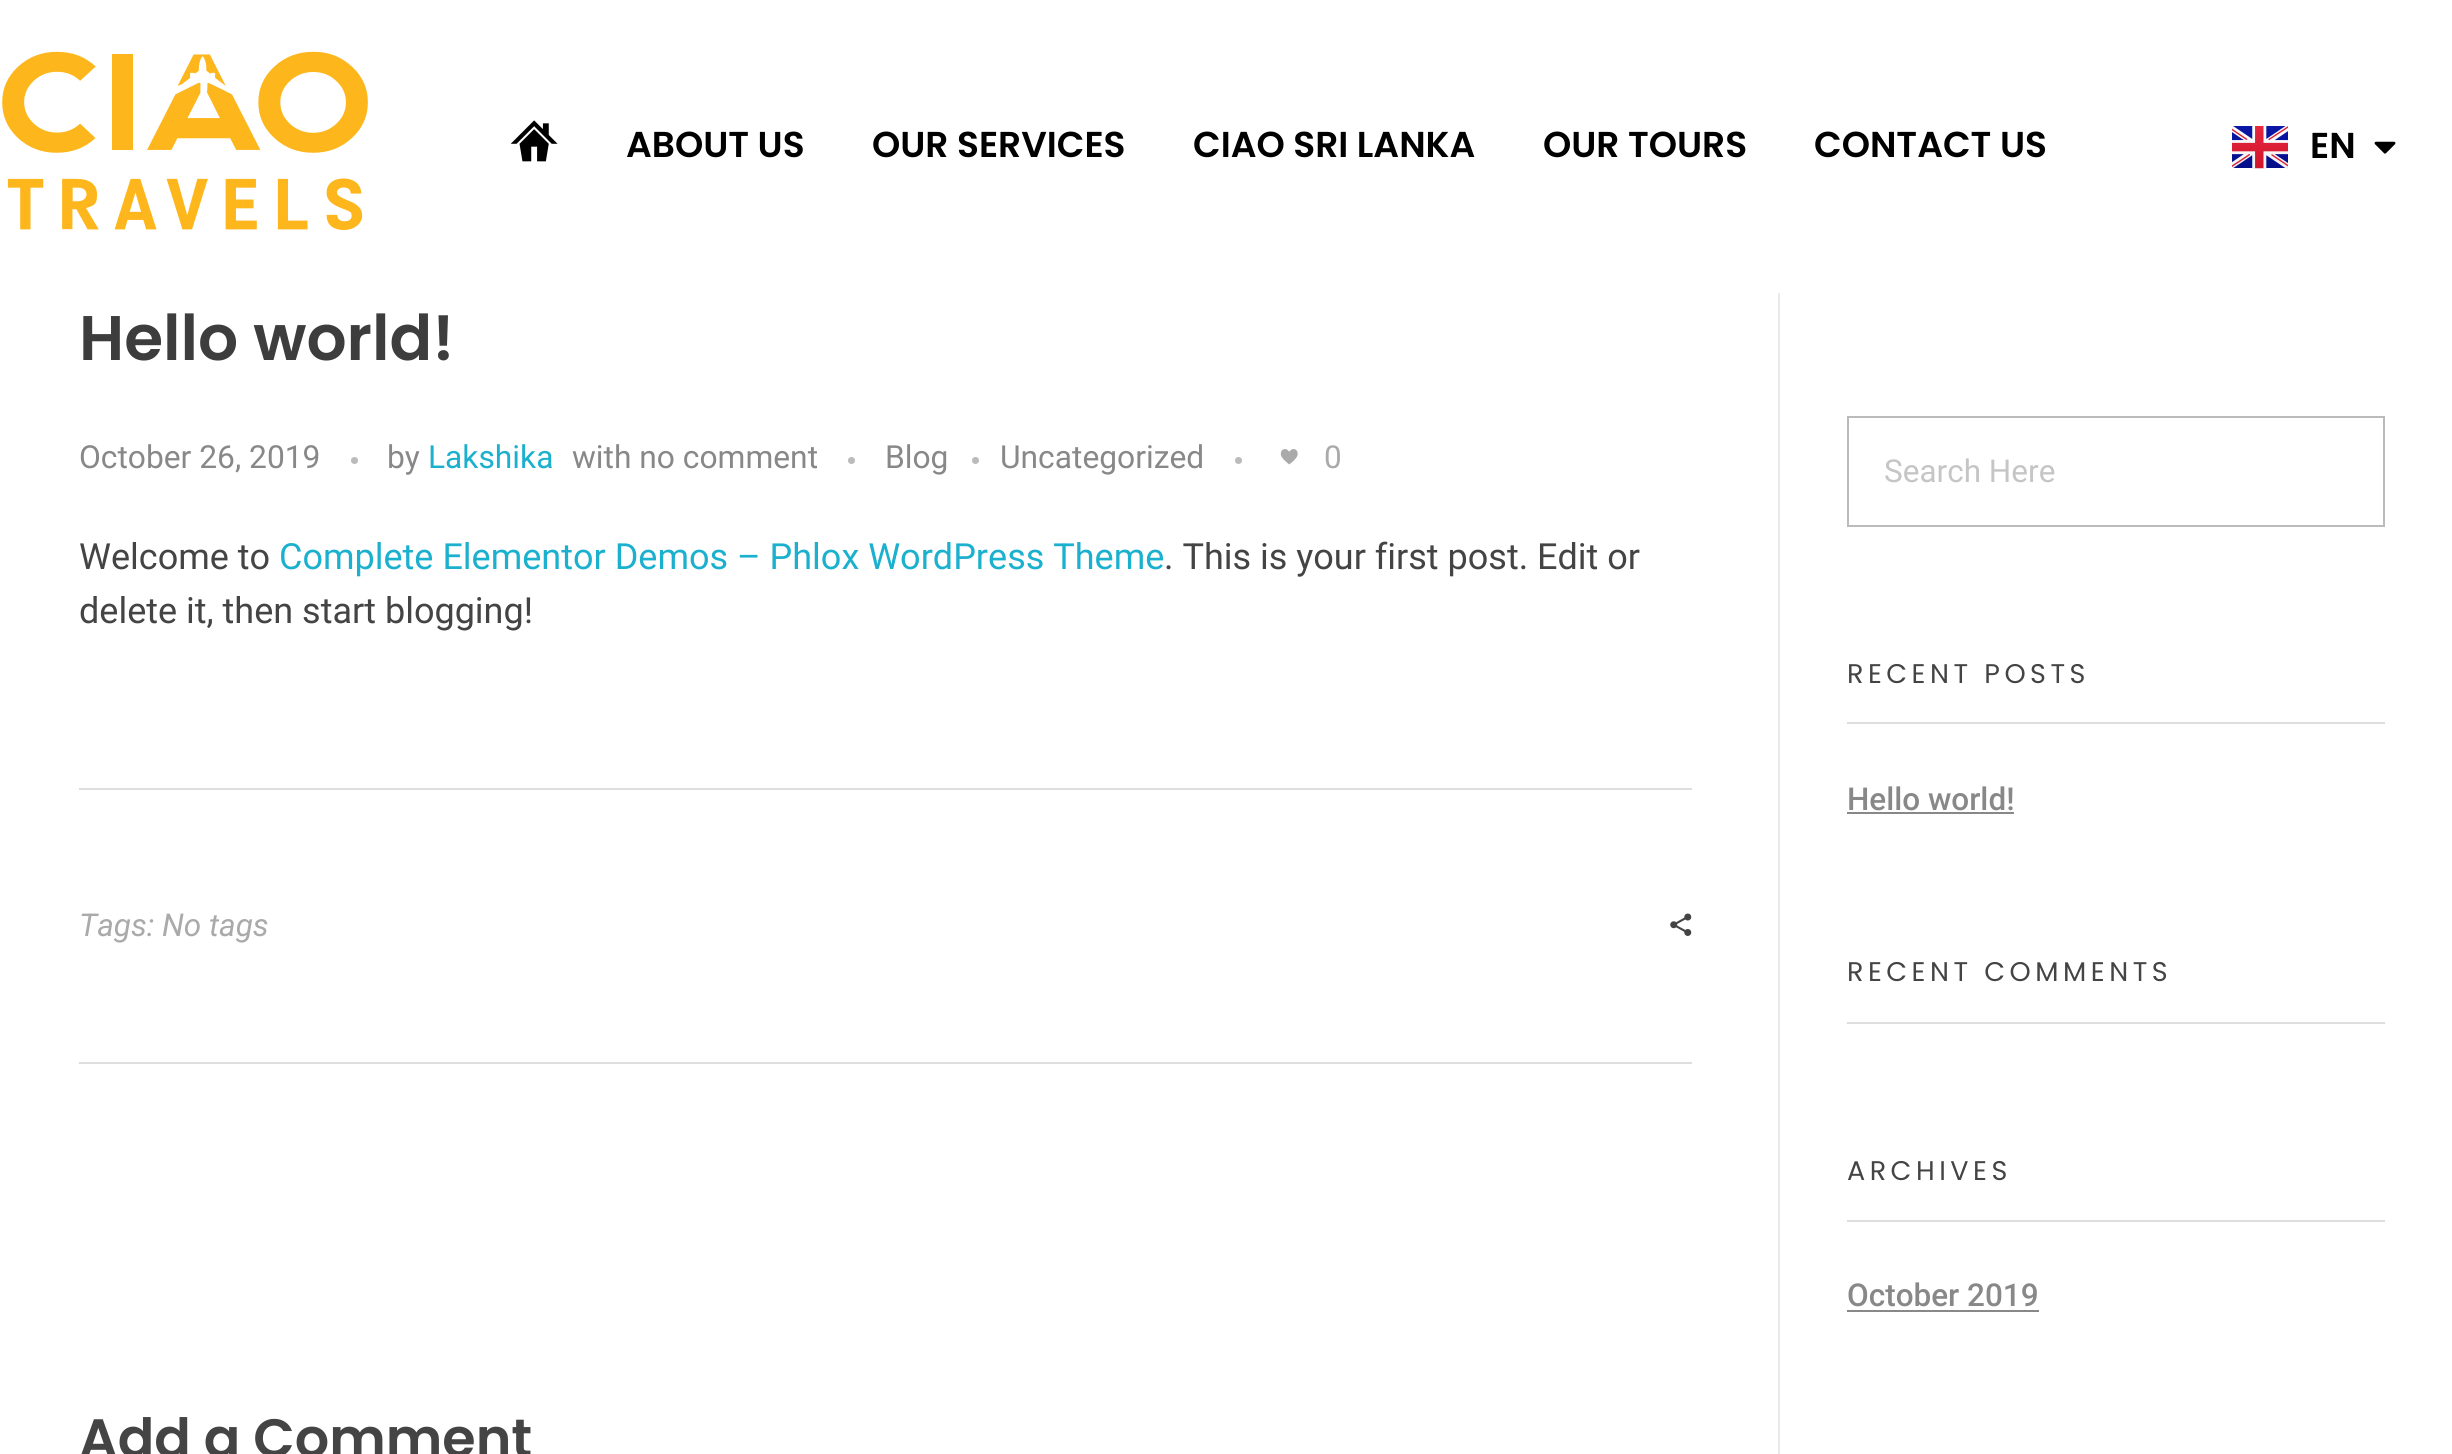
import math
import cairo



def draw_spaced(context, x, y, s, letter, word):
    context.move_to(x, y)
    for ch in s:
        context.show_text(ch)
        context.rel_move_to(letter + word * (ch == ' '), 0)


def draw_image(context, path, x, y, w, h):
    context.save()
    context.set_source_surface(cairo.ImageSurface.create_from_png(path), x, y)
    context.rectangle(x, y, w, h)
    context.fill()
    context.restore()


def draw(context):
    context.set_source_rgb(1, 1, 1)
    context.paint()
    draw_image(context, "images/1.png", 2, 51, 366, 179)
    draw_image(context, "images/2.png", 510, 120, 48, 42)
    draw_image(context, "images/3.png", 2232, 126, 56, 43)
    draw_image(context, "images/4.png", 2374, 141, 22, 13)
    context.set_source_rgb(187 / 255, 187 / 255, 187 / 255)
    context.arc(354.5, 460.5, 3.5, 0, 2 * math.pi)
    context.fill()
    context.arc(851.5, 460.5, 3.5, 0, 2 * math.pi)
    context.fill()
    context.arc(975.5, 460.5, 3.5, 0, 2 * math.pi)
    context.fill()
    context.arc(1238.5, 460.5, 3.5, 0, 2 * math.pi)
    context.fill()
    draw_image(context, "images/5.png", 1280, 449, 18, 16)
    context.set_source_rgb(222 / 255, 222 / 255, 222 / 255)
    context.rectangle(79, 788, 1613, 2)
    context.fill()
    context.rectangle(79, 1062, 1613, 2)
    context.fill()
    draw_image(context, "images/6.png", 1670, 913, 22, 23)
    context.set_source_rgb(234 / 255, 234 / 255, 234 / 255)
    context.rectangle(1778, 293, 2, 1161)
    context.fill()
    context.rectangle(1848, 417, 536, 109)
    context.set_source_rgb(187 / 255, 187 / 255, 187 / 255)
    context.stroke()
    context.set_source_rgb(222 / 255, 222 / 255, 222 / 255)
    context.rectangle(1847, 722, 538, 2)
    context.fill()
    context.set_source_rgb(136 / 255, 136 / 255, 136 / 255)
    context.rectangle(1847, 812, 167, 2)
    context.fill()
    context.set_source_rgb(222 / 255, 222 / 255, 222 / 255)
    context.rectangle(1847, 1022, 538, 2)
    context.fill()
    context.rectangle(1847, 1220, 538, 2)
    context.fill()
    context.set_source_rgb(136 / 255, 136 / 255, 136 / 255)
    context.rectangle(1847, 1310, 192, 2)
    context.fill()
    context.select_font_face("Poppins SemiBold")
    context.set_font_size(36)
    context.set_source_rgb(0, 0, 0)
    context.move_to(626, 157)
    context.show_text("ABOUT US")
    context.move_to(872, 157)
    context.show_text("OUR SERVICES")
    context.move_to(1193, 157)
    context.show_text("CIAO SRI LANKA")
    context.move_to(1543, 157)
    context.show_text("OUR TOURS")
    context.move_to(1814, 157)
    context.show_text("CONTACT US")
    context.move_to(2310, 158)
    context.show_text("EN")
    context.set_font_size(63)
    context.set_source_rgb(61 / 255, 61 / 255, 61 / 255)
    context.move_to(79, 360)
    context.show_text("Hello world!")
    context.select_font_face("Roboto")
    context.set_font_size(31.75)
    context.set_source_rgb(136 / 255, 136 / 255, 136 / 255)
    context.move_to(79, 468)
    context.show_text("October 26, 2019")
    context.move_to(387, 468)
    context.show_text("by")
    context.set_source_rgb(27 / 255, 176 / 255, 206 / 255)
    context.move_to(428, 468)
    context.show_text("Lakshika")
    context.set_source_rgb(136 / 255, 136 / 255, 136 / 255)
    context.move_to(572, 468)
    context.show_text("with no comment")
    context.move_to(885, 468)
    context.show_text("Blog")
    context.move_to(1000, 468)
    context.show_text("Uncategorized")
    context.set_font_size(31.5)
    context.set_source_rgb(170 / 255, 170 / 255, 170 / 255)
    context.move_to(1324, 468)
    context.show_text("0")
    context.set_font_size(36)
    context.set_source_rgb(68 / 255, 68 / 255, 68 / 255)
    context.move_to(79, 569)
    context.show_text("Welcome to")
    context.set_source_rgb(27 / 255, 176 / 255, 206 / 255)
    context.move_to(279, 569)
    context.show_text("Complete Elementor Demos – Phlox WordPress Theme")
    context.set_source_rgb(68 / 255, 68 / 255, 68 / 255)
    context.move_to(1164, 569)
    context.show_text(". This is your first post. Edit or")
    context.move_to(79, 623)
    context.show_text("delete it, then start blogging!")
    context.select_font_face("Roboto", cairo.FontSlant.ITALIC)
    context.set_font_size(31.5)
    context.set_source_rgb(170 / 255, 170 / 255, 170 / 255)
    context.move_to(79, 936)
    context.show_text("Tags: No tags")
    context.select_font_face("Poppins SemiBold")
    context.set_font_size(54)
    context.set_source_rgb(68 / 255, 68 / 255, 68 / 255)
    context.move_to(79, 1457)
    context.show_text("Add a Comment")
    context.select_font_face("Roboto")
    context.set_font_size(31.5)
    context.set_source_rgb(197 / 255, 197 / 255, 197 / 255)
    context.move_to(1884, 482)
    context.show_text("Search Here")
    context.select_font_face("Poppins")
    context.set_font_size(27)
    context.set_source_rgb(68 / 255, 68 / 255, 68 / 255)
    draw_spaced(context, 1847, 683, "RECENT POSTS", 4.5, 0)
    context.select_font_face("Roboto Medium")
    context.set_font_size(31.5)
    context.set_source_rgb(136 / 255, 136 / 255, 136 / 255)
    context.move_to(1847, 810)
    context.show_text("Hello world!")
    context.select_font_face("Poppins")
    context.set_font_size(27)
    context.set_source_rgb(68 / 255, 68 / 255, 68 / 255)
    draw_spaced(context, 1847, 981, "RECENT COMMENTS", 4.5, 0)
    draw_spaced(context, 1847, 1180, "ARCHIVES", 4.5, 0)
    context.select_font_face("Roboto Medium")
    context.set_font_size(31.5)
    context.set_source_rgb(136 / 255, 136 / 255, 136 / 255)
    context.move_to(1847, 1306)
    context.show_text("October 2019")


surface = cairo.ImageSurface(cairo.Format.RGB24, 2452, 1454)
context = cairo.Context(surface)
options = cairo.FontOptions()
options.set_hint_metrics(cairo.HintMetrics.OFF)
options.set_hint_style(cairo.HintStyle.NONE)
context.set_font_options(options)
context.set_miter_limit(4)
draw(context)
surface.write_to_png("out.png")
